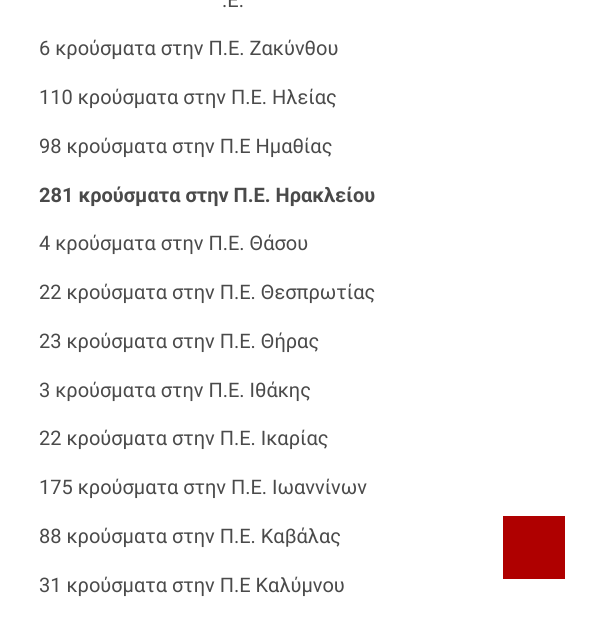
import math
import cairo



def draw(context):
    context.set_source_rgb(1, 1, 1)
    context.paint()
    context.set_source_rgb(175 / 255, 0, 0)
    context.rectangle(503, 516, 62, 63)
    context.fill()
    context.select_font_face("Roboto")
    context.set_font_size(20)
    context.set_source_rgb(74 / 255, 74 / 255, 74 / 255)
    context.move_to(222, 7)
    context.show_text(".Ε.")
    context.move_to(39, 55)
    context.show_text("6 κρούσματα στην Π.Ε. Ζακύνθου")
    context.move_to(39, 104)
    context.show_text("110 κρούσματα στην Π.Ε. Ηλείας")
    context.move_to(39, 153)
    context.show_text("98 κρούσματα στην Π.Ε Ημαθίας")
    context.select_font_face("Roboto", cairo.FontSlant.NORMAL, cairo.FontWeight.BOLD)
    context.move_to(39, 202)
    context.show_text("281 κρούσματα στην Π.Ε. Ηρακλείου")
    context.select_font_face("Roboto")
    context.move_to(39, 250)
    context.show_text("4 κρούσματα στην Π.Ε. Θάσου")
    context.move_to(39, 299)
    context.show_text("22 κρούσματα στην Π.Ε. Θεσπρωτίας")
    context.move_to(39, 348)
    context.show_text("23 κρούσματα στην Π.Ε. Θήρας")
    context.move_to(39, 397)
    context.show_text("3 κρούσματα στην Π.Ε. Ιθάκης")
    context.move_to(39, 445)
    context.show_text("22 κρούσματα στην Π.Ε. Ικαρίας")
    context.move_to(39, 494)
    context.show_text("175 κρούσματα στην Π.Ε. Ιωαννίνων")
    context.move_to(39, 543)
    context.show_text("88 κρούσματα στην Π.Ε. Καβάλας")
    context.move_to(39, 592)
    context.show_text("31 κρούσματα στην Π.Ε Καλύμνου")


surface = cairo.ImageSurface(cairo.Format.RGB24, 589, 628)
context = cairo.Context(surface)
options = cairo.FontOptions()
options.set_hint_metrics(cairo.HintMetrics.OFF)
options.set_hint_style(cairo.HintStyle.NONE)
context.set_font_options(options)
context.set_miter_limit(4)
draw(context)
surface.write_to_png("out.png")
